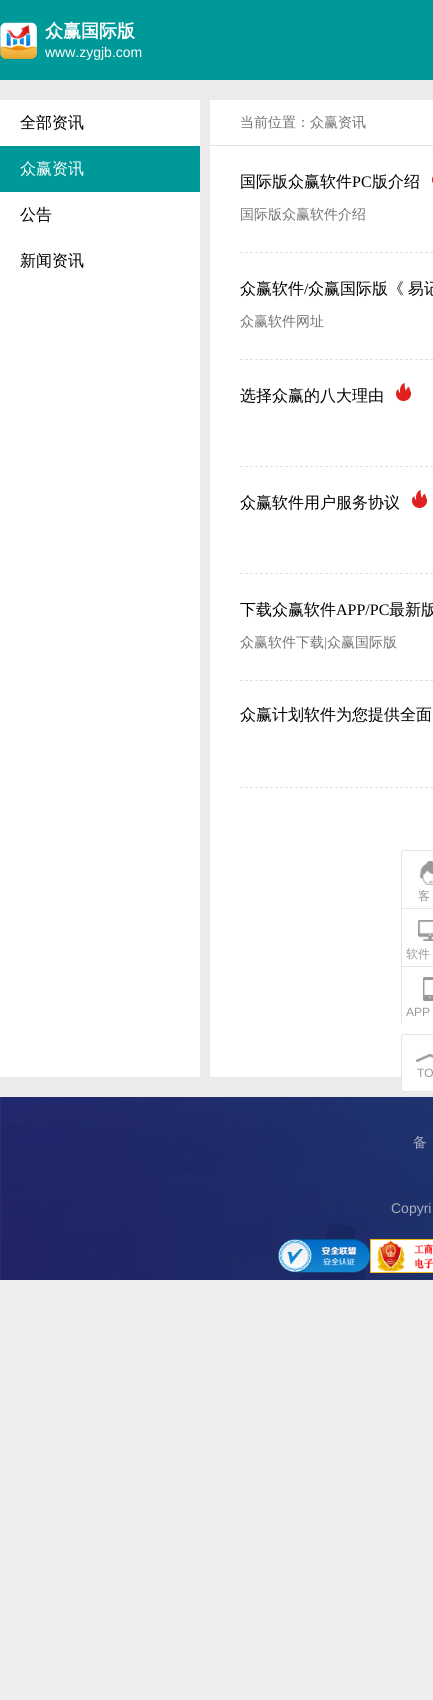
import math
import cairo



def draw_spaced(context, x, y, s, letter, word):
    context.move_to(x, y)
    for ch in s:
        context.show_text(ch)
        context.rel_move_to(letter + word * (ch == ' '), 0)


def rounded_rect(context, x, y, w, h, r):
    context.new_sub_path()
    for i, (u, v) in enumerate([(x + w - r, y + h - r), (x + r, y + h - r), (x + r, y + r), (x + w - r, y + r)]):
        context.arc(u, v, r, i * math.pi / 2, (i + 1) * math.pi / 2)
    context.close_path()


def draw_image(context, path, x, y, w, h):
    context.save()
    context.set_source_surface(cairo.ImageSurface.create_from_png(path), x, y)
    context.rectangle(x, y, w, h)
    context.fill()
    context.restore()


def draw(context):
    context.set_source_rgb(238 / 255, 238 / 255, 238 / 255)
    context.paint()
    context.set_source_rgb(0, 153 / 255, 154 / 255)
    context.rectangle(0, 0, 433, 80)
    context.fill()
    draw_image(context, "images/1.png", 0, 22, 37, 37)
    context.set_source_rgb(237 / 255, 234 / 255, 237 / 255)
    context.rectangle(0, 80, 433, 1017)
    context.fill()
    context.set_source_rgb(1, 1, 1)
    context.rectangle(0, 100, 200, 977)
    context.fill()
    context.set_source_rgb(0, 153 / 255, 154 / 255)
    context.rectangle(0, 146, 200, 46)
    context.fill()
    context.set_source_rgb(1, 1, 1)
    context.rectangle(210, 100, 223, 977)
    context.fill()
    context.set_source_rgb(226 / 255, 226 / 255, 226 / 255)
    context.rectangle(210, 145, 223, 1)
    context.fill()
    context.new_path()
    context.move_to(240, 252.5)
    context.line_to(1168, 252.5)
    context.set_line_width(1)
    context.set_dash([3, 2])
    context.stroke()
    draw_image(context, "images/2.png", 432, 176, 1, 8)
    context.new_path()
    context.move_to(240, 359.5)
    context.line_to(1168, 359.5)
    context.stroke()
    context.new_path()
    context.move_to(240, 466.5)
    context.line_to(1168, 466.5)
    context.stroke()
    draw_image(context, "images/3.png", 396, 383, 15, 18)
    context.new_path()
    context.move_to(240, 573.5)
    context.line_to(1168, 573.5)
    context.stroke()
    draw_image(context, "images/3.png", 412, 490, 15, 18)
    context.new_path()
    context.move_to(240, 680.5)
    context.line_to(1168, 680.5)
    context.stroke()
    context.new_path()
    context.move_to(240, 787.5)
    context.line_to(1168, 787.5)
    context.stroke()
    context.set_source_rgb(229 / 255, 229 / 255, 229 / 255)
    context.set_fill_rule(cairo.FillRule.EVEN_ODD)
    context.new_path()
    context.move_to(404, 850)
    context.line_to(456, 850)
    context.curve_to(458, 850, 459, 851, 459, 853)
    context.line_to(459, 908)
    context.line_to(401, 908)
    context.line_to(401, 853)
    context.curve_to(401, 851, 402, 850, 404, 850)
    context.close_path()
    context.move_to(404, 851)
    context.line_to(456, 851)
    context.curve_to(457, 851, 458, 852, 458, 853)
    context.line_to(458, 908)
    context.line_to(402, 908)
    context.line_to(402, 853)
    context.curve_to(402, 852, 403, 851, 404, 851)
    context.close_path()
    context.fill()
    draw_image(context, "images/4.png", 420, 861, 13, 24)
    context.rectangle(401, 908, 32, 1)
    context.fill()
    context.rectangle(401, 908, 1, 58)
    context.fill()
    draw_image(context, "images/5.png", 418, 920, 15, 21)
    context.rectangle(401, 966, 32, 1)
    context.fill()
    context.rectangle(401, 966, 1, 58)
    context.fill()
    draw_image(context, "images/6.png", 423, 977, 10, 24)
    context.set_source_rgb(1, 1, 1)
    rounded_rect(context, 401.5, 1034.5, 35, 57, 2.5)
    context.fill_preserve()
    context.set_source_rgb(229 / 255, 229 / 255, 229 / 255)
    context.set_dash([])
    context.stroke()
    draw_image(context, "images/7.png", 416, 1054, 17, 8)
    draw_image(context, "images/8.png", 0, 1097, 433, 183)
    draw_image(context, "images/9.png", 278, 1239, 92, 34)
    draw_image(context, "images/10.png", 370, 1239, 63, 34)
    context.select_font_face("WenQuanYi Zen Hei", cairo.FontSlant.NORMAL, cairo.FontWeight.BOLD)
    context.set_font_size(18)
    context.set_source_rgb(1, 1, 1)
    context.move_to(45, 37)
    context.show_text("众赢国际版")
    context.select_font_face("Liberation Sans")
    context.set_font_size(14)
    context.move_to(45, 57)
    context.show_text("www.zygjb.com")
    context.select_font_face("WenQuanYi Zen Hei Medium")
    context.set_font_size(16)
    context.set_source_rgb(0, 0, 0)
    context.move_to(20, 128)
    context.show_text("全部资讯")
    context.set_source_rgb(1, 1, 1)
    context.move_to(20, 174)
    context.show_text("众赢资讯")
    context.set_source_rgb(0, 0, 0)
    context.move_to(20, 220)
    context.show_text("公告")
    context.move_to(20, 266)
    context.show_text("新闻资讯")
    context.set_font_size(14)
    context.set_source_rgb(115 / 255, 115 / 255, 115 / 255)
    context.move_to(240, 127)
    context.show_text("当前位置：众赢资讯")
    context.set_font_size(16)
    context.set_source_rgb(0, 0, 0)
    context.move_to(240, 187)
    context.show_text("国际版众赢软件")
    context.select_font_face("Liberation Serif")
    context.move_to(352, 187)
    context.show_text("PC")
    context.select_font_face("WenQuanYi Zen Hei Medium")
    context.move_to(372, 187)
    context.show_text("版介绍")
    context.set_font_size(14)
    context.set_source_rgb(115 / 255, 115 / 255, 115 / 255)
    context.move_to(240, 219)
    context.show_text("国际版众赢软件介绍")
    context.set_font_size(16)
    context.set_source_rgb(0, 0, 0)
    context.move_to(240, 294)
    context.show_text("众赢软件")
    context.select_font_face("Liberation Serif")
    context.move_to(304, 294)
    context.show_text("/")
    context.select_font_face("WenQuanYi Zen Hei Medium")
    draw_spaced(context, 308, 294, "众赢国际版《 易记", 0, -1)
    context.set_font_size(14)
    context.set_source_rgb(115 / 255, 115 / 255, 115 / 255)
    context.move_to(240, 326)
    context.show_text("众赢软件网址")
    context.set_font_size(16)
    context.set_source_rgb(0, 0, 0)
    context.move_to(240, 401)
    context.show_text("选择众赢的八大理由")
    context.move_to(240, 508)
    context.show_text("众赢软件用户服务协议")
    context.move_to(240, 615)
    context.show_text("下载众赢软件")
    context.select_font_face("Liberation Serif")
    context.move_to(336, 615)
    context.show_text("APP/PC")
    context.select_font_face("WenQuanYi Zen Hei Medium")
    context.move_to(389, 615)
    context.show_text("最新版")
    context.set_font_size(14)
    context.set_source_rgb(115 / 255, 115 / 255, 115 / 255)
    context.move_to(240, 647)
    context.show_text("众赢软件下载")
    context.select_font_face("Liberation Serif")
    context.move_to(324, 647)
    context.show_text("|")
    context.select_font_face("WenQuanYi Zen Hei Medium")
    context.move_to(327, 647)
    context.show_text("众赢国际版")
    context.set_font_size(16)
    context.set_source_rgb(0, 0, 0)
    context.move_to(240, 720)
    context.show_text("众赢计划软件为您提供全面")
    context.set_font_size(12)
    context.set_source_rgb(153 / 255, 153 / 255, 153 / 255)
    context.move_to(418, 900)
    context.show_text("客")
    context.move_to(406, 958)
    context.show_text("软件")
    context.select_font_face("Liberation Sans")
    context.move_to(406, 1016)
    context.show_text("APP")
    context.move_to(417, 1077)
    context.show_text("TO")
    context.select_font_face("WenQuanYi Zen Hei Medium")
    context.set_font_size(14)
    context.set_source_rgb(169 / 255, 174 / 255, 191 / 255)
    context.move_to(413, 1147)
    context.show_text("备")
    context.select_font_face("Liberation Sans")
    context.move_to(391, 1213)
    context.show_text("Copyri")


surface = cairo.ImageSurface(cairo.Format.RGB24, 433, 1700)
context = cairo.Context(surface)
options = cairo.FontOptions()
options.set_hint_metrics(cairo.HintMetrics.OFF)
options.set_hint_style(cairo.HintStyle.NONE)
context.set_font_options(options)
context.set_miter_limit(4)
draw(context)
surface.write_to_png("out.png")
